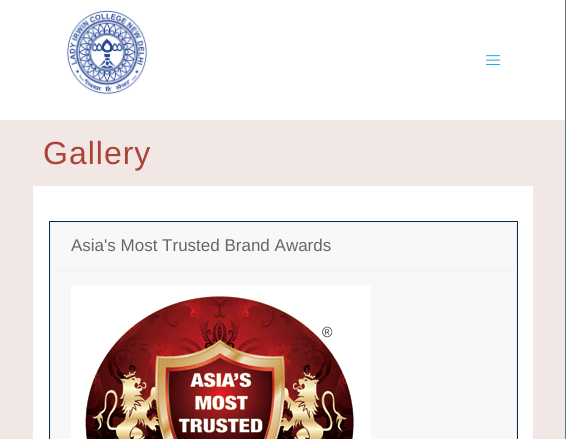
import math
import cairo



def draw_spaced(context, x, y, s, letter, word):
    context.move_to(x, y)
    for ch in s:
        context.show_text(ch)
        context.rel_move_to(letter + word * (ch == ' '), 0)


def draw_image(context, path, x, y, w, h):
    context.save()
    context.set_source_surface(cairo.ImageSurface.create_from_png(path), x, y)
    context.rectangle(x, y, w, h)
    context.fill()
    context.restore()


def draw(context):
    context.set_source_rgb(241 / 255, 231 / 255, 229 / 255)
    context.paint()
    context.set_source_rgb(1, 1, 1)
    context.rectangle(0, 0, 565, 120)
    context.fill()
    draw_image(context, "images/1.png", 66, 10, 82, 85)
    draw_image(context, "images/2.png", 486, 55, 14, 10)
    context.rectangle(33, 186, 500, 253)
    context.fill()
    context.rectangle(49.5, 221.5, 468, 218)
    context.set_source_rgb(8 / 255, 44 / 255, 80 / 255)
    context.set_line_width(1)
    context.stroke()
    context.set_source_rgb(248 / 255, 248 / 255, 248 / 255)
    context.new_path()
    context.move_to(55, 222.5)
    context.line_to(512, 222.5)
    context.curve_to(514.5, 222.5, 516.5, 224.5, 516.5, 227)
    context.line_to(516.5, 268.5)
    context.line_to(50.5, 268.5)
    context.line_to(50.5, 227)
    context.curve_to(50.5, 224.5, 52.5, 222.5, 55, 222.5)
    context.close_path()
    context.fill_preserve()
    context.set_source_rgb(240 / 255, 240 / 255, 240 / 255)
    context.stroke()
    context.set_source_rgb(248 / 255, 248 / 255, 248 / 255)
    context.rectangle(50.5, 270.5, 466, 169)
    context.fill_preserve()
    context.set_source_rgb(240 / 255, 240 / 255, 240 / 255)
    context.stroke()
    draw_image(context, "images/3.png", 71, 285, 300, 154)
    context.set_source_rgb(90 / 255, 121 / 255, 121 / 255)
    context.new_path()
    context.move_to(565, 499)
    context.line_to(565, 0)
    context.line_to(566, 0)
    context.line_to(566, 439)
    context.close_path()
    context.fill()
    context.select_font_face("Liberation Sans")
    context.set_font_size(32)
    context.set_source_rgb(171 / 255, 67 / 255, 54 / 255)
    draw_spaced(context, 43, 164, "Gallery", 1, 0)
    context.set_font_size(17)
    context.set_source_rgb(102 / 255, 102 / 255, 102 / 255)
    context.move_to(71, 251)
    context.show_text("Asia's Most Trusted Brand Awards")


surface = cairo.ImageSurface(cairo.Format.RGB24, 566, 439)
context = cairo.Context(surface)
options = cairo.FontOptions()
options.set_hint_metrics(cairo.HintMetrics.OFF)
options.set_hint_style(cairo.HintStyle.NONE)
context.set_font_options(options)
context.set_miter_limit(4)
draw(context)
surface.write_to_png("out.png")
